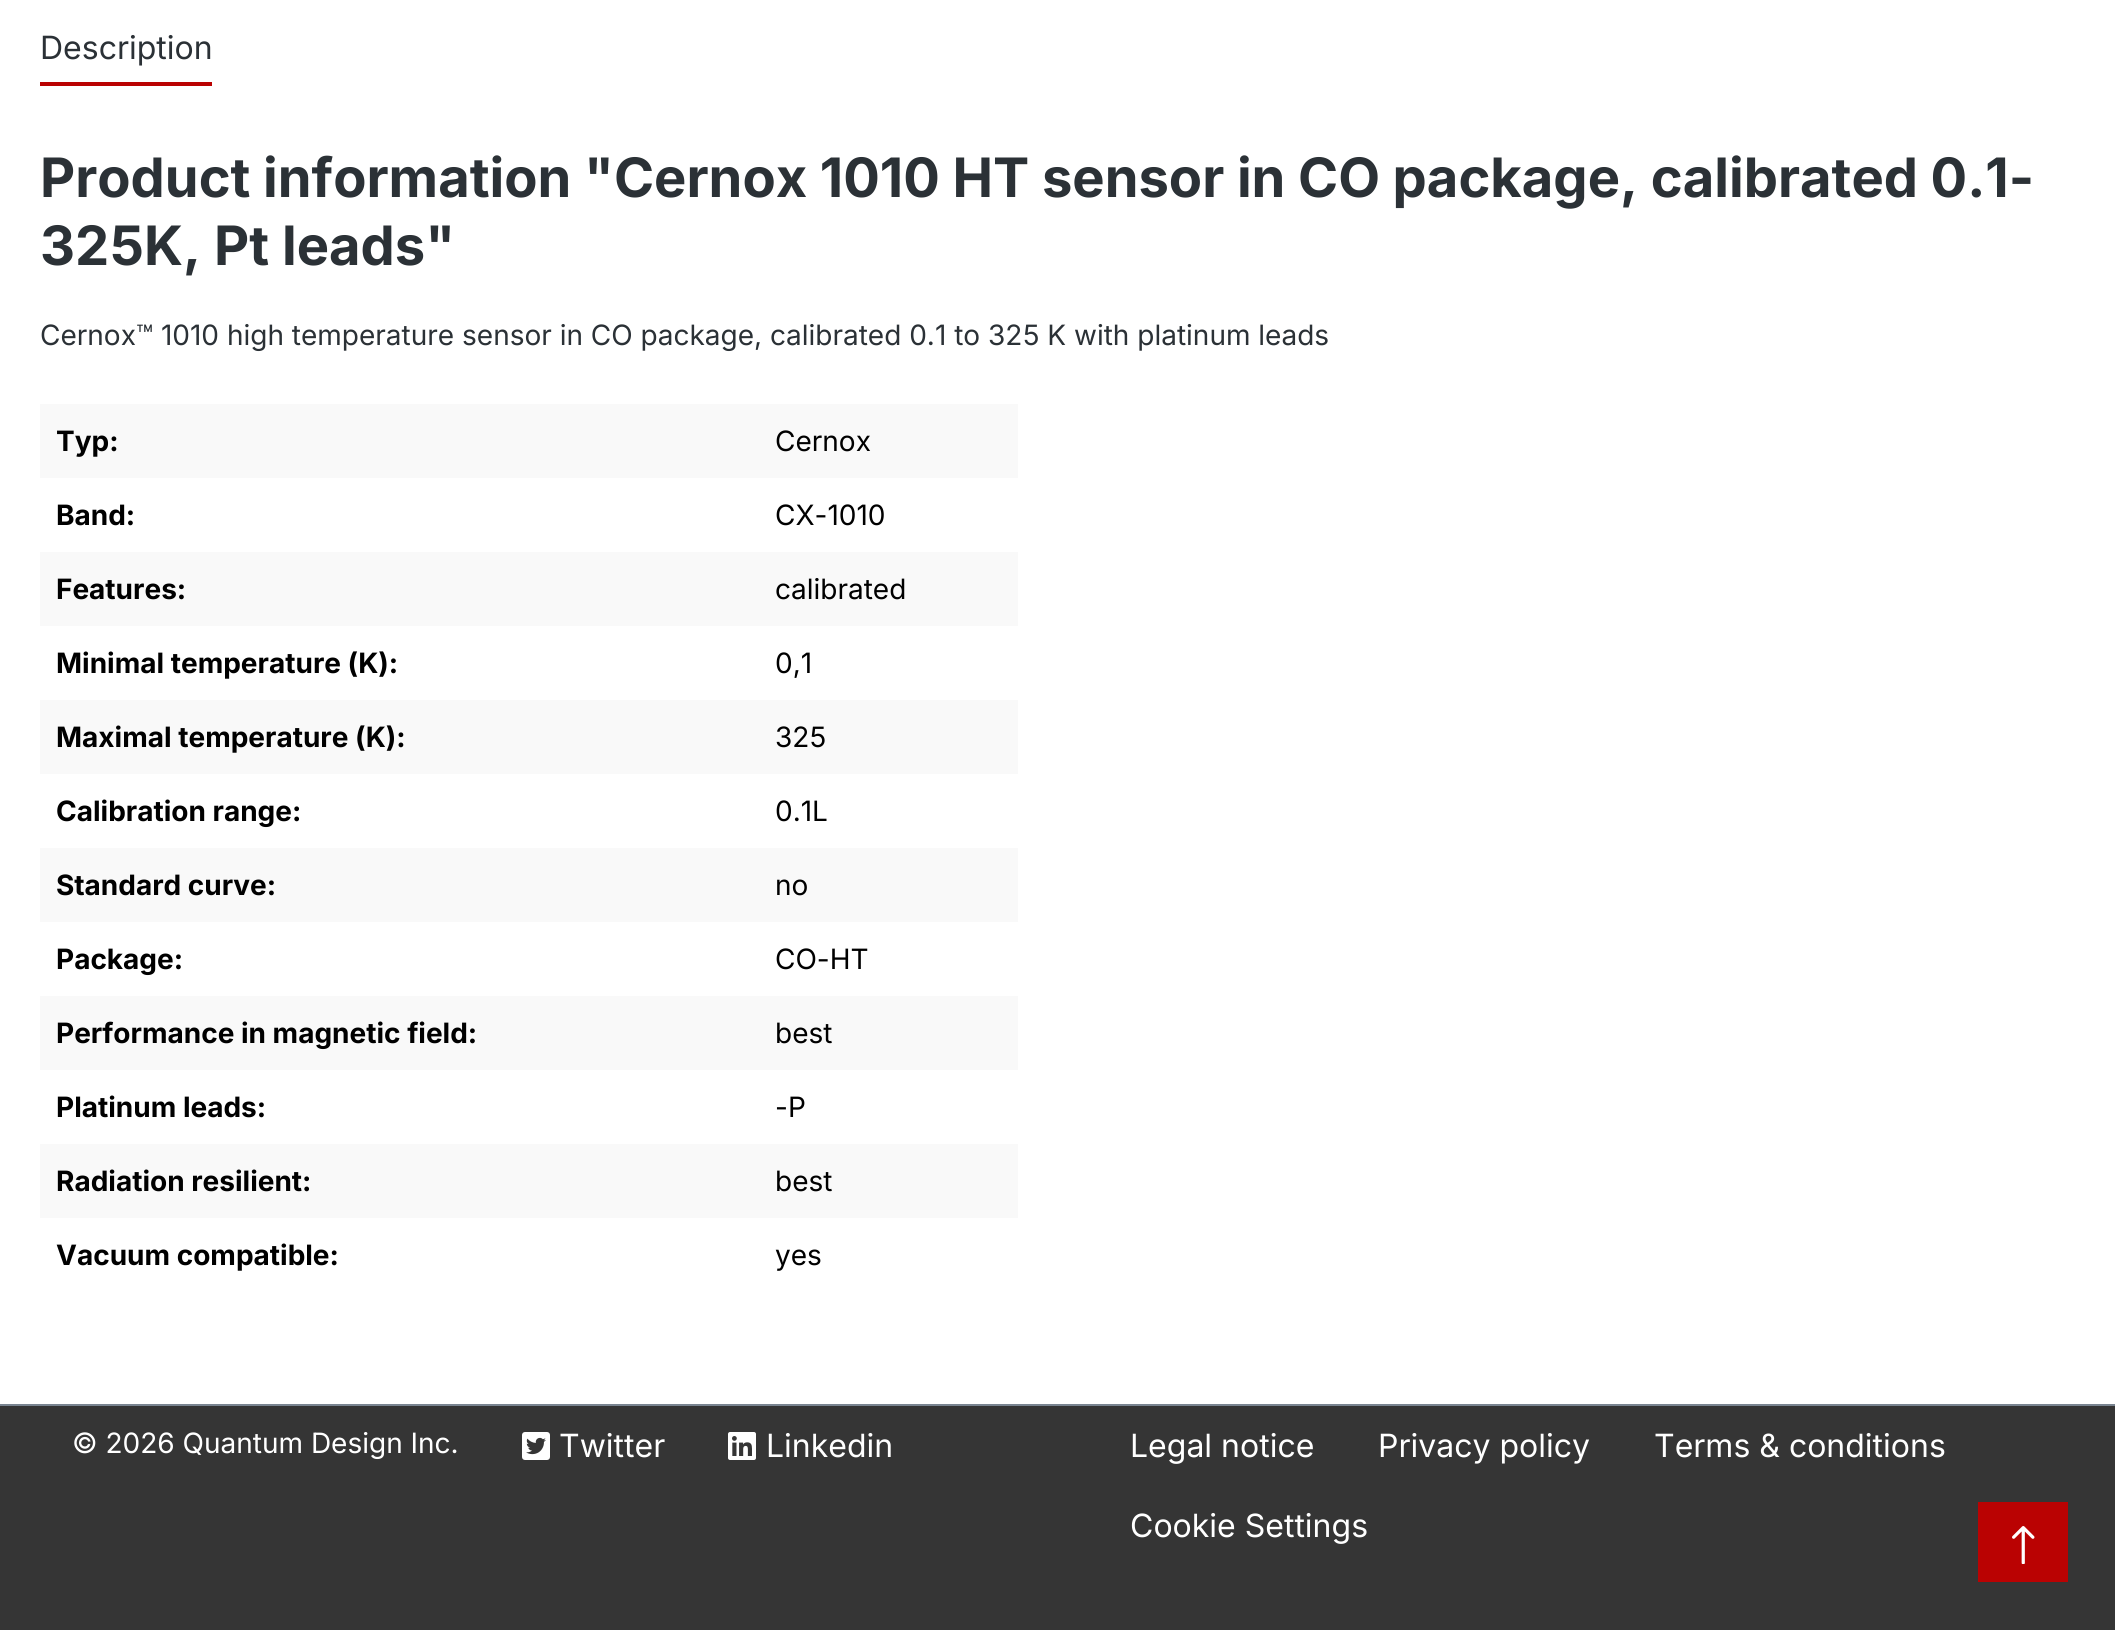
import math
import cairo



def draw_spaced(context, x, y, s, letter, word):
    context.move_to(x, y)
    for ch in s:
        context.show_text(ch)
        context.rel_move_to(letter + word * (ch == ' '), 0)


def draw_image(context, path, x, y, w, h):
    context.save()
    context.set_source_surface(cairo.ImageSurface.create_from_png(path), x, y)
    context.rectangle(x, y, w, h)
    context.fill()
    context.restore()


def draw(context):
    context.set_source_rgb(1, 1, 1)
    context.paint()
    context.set_source_rgb(186 / 255, 2 / 255, 2 / 255)
    context.rectangle(40, 82, 172, 4)
    context.fill()
    context.set_source_rgb(249 / 255, 249 / 255, 249 / 255)
    context.rectangle(40, 404, 978, 74)
    context.fill()
    context.rectangle(40, 552, 978, 74)
    context.fill()
    context.rectangle(40, 700, 978, 74)
    context.fill()
    context.rectangle(40, 848, 978, 74)
    context.fill()
    context.rectangle(40, 996, 978, 74)
    context.fill()
    context.rectangle(40, 1144, 978, 74)
    context.fill()
    context.set_source_rgb(53 / 255, 53 / 255, 53 / 255)
    context.rectangle(0, 1406, 2115, 224)
    context.fill()
    context.set_source_rgb(121 / 255, 132 / 255, 144 / 255)
    context.rectangle(0, 1404, 2115, 2)
    context.fill()
    draw_image(context, "images/1.png", 522, 1432, 28, 28)
    draw_image(context, "images/2.png", 728, 1432, 28, 28)
    context.set_source_rgb(186 / 255, 2 / 255, 2 / 255)
    context.rectangle(1978, 1502, 90, 80)
    context.fill()
    draw_image(context, "images/3.png", 2012, 1526, 23, 38)
    context.select_font_face("Inter")
    context.set_font_size(32)
    context.set_source_rgb(43 / 255, 49 / 255, 54 / 255)
    context.move_to(40, 59)
    context.show_text("Description")
    context.select_font_face("Inter", cairo.FontSlant.NORMAL, cairo.FontWeight.BOLD)
    context.set_font_size(54.3)
    draw_spaced(context, 40, 197, "Product information \"Cernox 1010 HT sensor in CO package, calibrated 0.1-", 0, -0.25)
    context.move_to(40, 265)
    context.show_text("325K, Pt leads\"")
    context.select_font_face("Inter")
    context.set_font_size(28)
    context.move_to(40, 345)
    context.show_text("Cernox™ 1010 high temperature sensor in CO package, calibrated 0.1 to 325 K with platinum leads")
    context.select_font_face("Inter", cairo.FontSlant.NORMAL, cairo.FontWeight.BOLD)
    context.set_source_rgb(0, 0, 0)
    context.move_to(56, 451)
    context.show_text("Typ:")
    context.select_font_face("Inter")
    context.move_to(775, 451)
    context.show_text("Cernox")
    context.select_font_face("Inter", cairo.FontSlant.NORMAL, cairo.FontWeight.BOLD)
    context.move_to(56, 525)
    context.show_text("Band:")
    context.select_font_face("Inter")
    context.move_to(775, 525)
    context.show_text("CX-1010")
    context.select_font_face("Inter", cairo.FontSlant.NORMAL, cairo.FontWeight.BOLD)
    context.move_to(56, 599)
    context.show_text("Features:")
    context.select_font_face("Inter")
    context.move_to(775, 599)
    context.show_text("calibrated")
    context.select_font_face("Inter", cairo.FontSlant.NORMAL, cairo.FontWeight.BOLD)
    context.move_to(56, 673)
    context.show_text("Minimal temperature (K):")
    context.select_font_face("Inter")
    context.move_to(775, 673)
    context.show_text("0,1")
    context.select_font_face("Inter", cairo.FontSlant.NORMAL, cairo.FontWeight.BOLD)
    context.move_to(56, 747)
    context.show_text("Maximal temperature (K):")
    context.select_font_face("Inter")
    context.move_to(775, 747)
    context.show_text("325")
    context.select_font_face("Inter", cairo.FontSlant.NORMAL, cairo.FontWeight.BOLD)
    context.move_to(56, 821)
    context.show_text("Calibration range:")
    context.select_font_face("Inter")
    context.move_to(775, 821)
    context.show_text("0.1L")
    context.select_font_face("Inter", cairo.FontSlant.NORMAL, cairo.FontWeight.BOLD)
    context.move_to(56, 895)
    context.show_text("Standard curve:")
    context.select_font_face("Inter")
    context.move_to(775, 895)
    context.show_text("no")
    context.select_font_face("Inter", cairo.FontSlant.NORMAL, cairo.FontWeight.BOLD)
    context.move_to(56, 969)
    context.show_text("Package:")
    context.select_font_face("Inter")
    context.move_to(775, 969)
    context.show_text("CO-HT")
    context.select_font_face("Inter", cairo.FontSlant.NORMAL, cairo.FontWeight.BOLD)
    context.move_to(56, 1043)
    context.show_text("Performance in magnetic field:")
    context.select_font_face("Inter")
    context.move_to(775, 1043)
    context.show_text("best")
    context.select_font_face("Inter", cairo.FontSlant.NORMAL, cairo.FontWeight.BOLD)
    context.move_to(56, 1117)
    context.show_text("Platinum leads:")
    context.select_font_face("Inter")
    context.move_to(775, 1117)
    context.show_text("-P")
    context.select_font_face("Inter", cairo.FontSlant.NORMAL, cairo.FontWeight.BOLD)
    context.move_to(56, 1191)
    context.show_text("Radiation resilient:")
    context.select_font_face("Inter")
    context.move_to(775, 1191)
    context.show_text("best")
    context.select_font_face("Inter", cairo.FontSlant.NORMAL, cairo.FontWeight.BOLD)
    context.move_to(56, 1265)
    context.show_text("Vacuum compatible:")
    context.select_font_face("Inter")
    context.move_to(775, 1265)
    context.show_text("yes")
    context.set_source_rgb(1, 1, 1)
    context.move_to(72, 1453)
    context.show_text("© 2026 Quantum Design Inc.")
    context.set_font_size(32)
    context.move_to(559, 1457)
    context.show_text("Twitter")
    context.move_to(766, 1457)
    context.show_text("Linkedin")
    context.move_to(1130, 1457)
    context.show_text("Legal notice")
    context.move_to(1378, 1457)
    context.show_text("Privacy policy")
    context.move_to(1654, 1457)
    context.show_text("Terms & conditions")
    context.move_to(1130, 1537)
    context.show_text("Cookie Settings")


surface = cairo.ImageSurface(cairo.Format.RGB24, 2115, 1630)
context = cairo.Context(surface)
options = cairo.FontOptions()
options.set_hint_metrics(cairo.HintMetrics.OFF)
options.set_hint_style(cairo.HintStyle.NONE)
context.set_font_options(options)
context.set_miter_limit(4)
draw(context)
surface.write_to_png("out.png")
